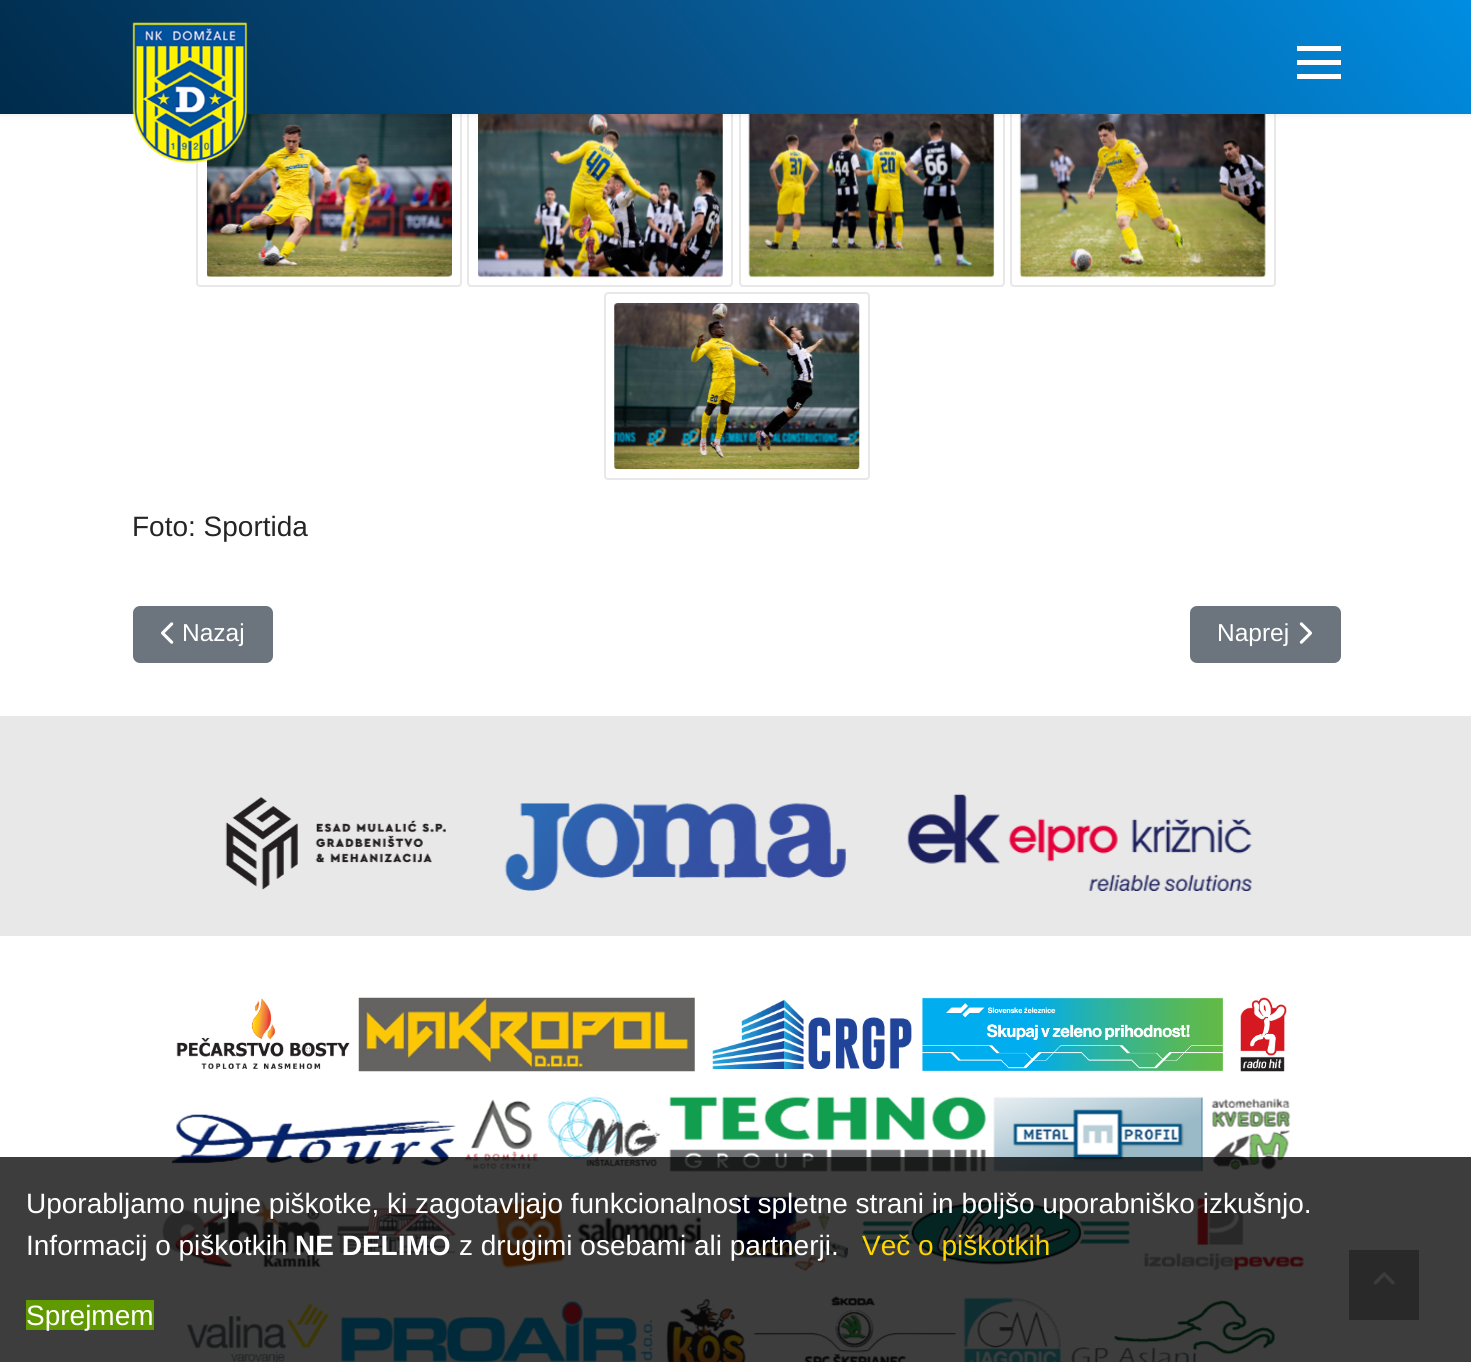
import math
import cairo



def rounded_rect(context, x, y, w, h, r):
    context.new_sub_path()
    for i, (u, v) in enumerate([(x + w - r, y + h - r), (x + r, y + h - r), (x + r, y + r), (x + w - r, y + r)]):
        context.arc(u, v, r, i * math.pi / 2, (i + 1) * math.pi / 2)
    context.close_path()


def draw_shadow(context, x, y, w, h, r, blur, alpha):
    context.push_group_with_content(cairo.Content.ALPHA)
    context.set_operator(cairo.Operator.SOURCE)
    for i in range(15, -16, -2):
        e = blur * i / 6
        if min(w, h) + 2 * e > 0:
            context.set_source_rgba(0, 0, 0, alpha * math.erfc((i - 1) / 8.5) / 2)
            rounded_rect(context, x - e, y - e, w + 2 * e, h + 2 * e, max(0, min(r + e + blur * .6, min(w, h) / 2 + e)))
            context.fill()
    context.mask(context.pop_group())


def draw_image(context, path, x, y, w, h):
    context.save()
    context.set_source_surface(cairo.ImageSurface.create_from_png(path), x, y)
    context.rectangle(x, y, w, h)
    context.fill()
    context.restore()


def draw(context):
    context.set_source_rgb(1, 1, 1)
    context.paint()
    rounded_rect(context, 197, 101, 264, 185, 3)
    context.set_source_rgb(232 / 255, 232 / 255, 232 / 255)
    context.stroke()
    draw_image(context, "images/2.png", 207, 114, 245, 163)
    rounded_rect(context, 468, 101, 264, 185, 3)
    context.stroke()
    draw_image(context, "images/3.png", 478, 114, 245, 164)
    rounded_rect(context, 740, 101, 264, 185, 3)
    context.stroke()
    draw_image(context, "images/4.png", 748, 114, 247, 164)
    rounded_rect(context, 1011, 101, 264, 185, 3)
    context.stroke()
    draw_image(context, "images/5.png", 1019, 114, 247, 164)
    context.set_source_rgb(0, 0, 0)
    draw_shadow(context, 0, 0, 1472, 114, 0, 3.5, 0.1)
    gradient = cairo.LinearGradient(264, 439, 1208, -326)
    gradient.add_color_stop_rgba(0, 0, 43 / 255, 75 / 255, 1)
    gradient.add_color_stop_rgba(0.45, 8 / 255, 80 / 255, 134 / 255, 1)
    gradient.add_color_stop_rgba(1, 0, 141 / 255, 226 / 255, 1)
    context.set_source(gradient)
    context.rectangle(0, 0, 1471, 114)
    context.fill()
    draw_image(context, "images/1.png", 132, 22, 116, 141)
    context.set_source_rgb(1, 1, 1)
    context.rectangle(1297, 46, 44, 5)
    context.fill()
    context.rectangle(1297, 60, 44, 5)
    context.fill()
    context.rectangle(1297, 74, 44, 5)
    context.fill()
    rounded_rect(context, 605, 293, 264, 186, 3)
    context.set_source_rgb(232 / 255, 232 / 255, 232 / 255)
    context.stroke()
    draw_image(context, "images/6.png", 614, 303, 246, 167)
    context.set_source_rgb(108 / 255, 117 / 255, 125 / 255)
    rounded_rect(context, 134, 607, 138, 55, 6)
    context.fill_preserve()
    context.stroke()
    draw_image(context, "images/7.png", 161, 622, 13, 22)
    rounded_rect(context, 1191, 607, 149, 55, 6)
    context.fill_preserve()
    context.stroke()
    draw_image(context, "images/8.png", 1299, 622, 13, 22)
    context.set_source_rgb(232 / 255, 232 / 255, 232 / 255)
    context.rectangle(0, 716, 1471, 220)
    context.fill()
    draw_image(context, "images/9.png", 225, 797, 221, 93)
    draw_image(context, "images/10.png", 504, 803, 342, 88)
    draw_image(context, "images/11.png", 907, 794, 345, 97)
    draw_image(context, "images/12.png", 176, 998, 174, 71)
    draw_image(context, "images/13.png", 358, 997, 337, 75)
    draw_image(context, "images/14.png", 712, 1000, 200, 69)
    draw_image(context, "images/15.png", 922, 997, 301, 74)
    draw_image(context, "images/16.png", 1240, 997, 47, 75)
    draw_image(context, "images/17.png", 172, 1114, 284, 52)
    draw_image(context, "images/18.png", 465, 1099, 73, 70)
    draw_image(context, "images/19.png", 547, 1096, 113, 71)
    draw_image(context, "images/20.png", 669, 1096, 317, 76)
    draw_image(context, "images/21.png", 993, 1096, 210, 76)
    draw_image(context, "images/22.png", 1211, 1098, 80, 72)
    draw_image(context, "images/23.png", 162, 1199, 294, 69)
    draw_image(context, "images/24.png", 495, 1198, 207, 71)
    draw_image(context, "images/25.png", 736, 1196, 112, 76)
    draw_image(context, "images/26.png", 862, 1201, 268, 64)
    draw_image(context, "images/27.png", 1143, 1198, 161, 73)
    draw_image(context, "images/28.png", 186, 1303, 143, 59)
    draw_image(context, "images/29.png", 340, 1301, 313, 61)
    draw_image(context, "images/30.png", 666, 1299, 80, 63)
    draw_image(context, "images/31.png", 753, 1296, 203, 66)
    draw_image(context, "images/32.png", 963, 1297, 98, 65)
    draw_image(context, "images/33.png", 1071, 1300, 205, 62)
    context.set_source_rgb(172 / 255, 172 / 255, 172 / 255)
    context.rectangle(1349, 1250, 70, 70)
    context.fill()
    draw_image(context, "images/34.png", 1373, 1272, 22, 13)
    context.set_source_rgba(0, 0, 0, 0.76)
    context.rectangle(0, 1157, 1471, 205)
    context.fill()
    context.set_source_rgb(97 / 255, 153 / 255, 0)
    context.rectangle(26, 1300, 128, 30)
    context.fill()
    context.select_font_face("Liberation Sans")
    context.set_font_size(28)
    context.set_source_rgb(37 / 255, 37 / 255, 37 / 255)
    context.move_to(132, 536)
    context.show_text("Foto: Sportida")
    context.set_font_size(24.5)
    context.set_source_rgb(1, 1, 1)
    context.move_to(182, 641)
    context.show_text("Nazaj")
    context.move_to(1217, 641)
    context.show_text("Naprej")
    context.set_font_size(28)
    context.move_to(26, 1213)
    context.show_text("Uporabljamo nujne piškotke, ki zagotavljajo funkcionalnost spletne strani in boljšo uporabniško izkušnjo.")
    context.move_to(26, 1255)
    context.show_text("Informacij o piškotkih")
    context.select_font_face("Liberation Sans", cairo.FontSlant.NORMAL, cairo.FontWeight.BOLD)
    context.move_to(295, 1255)
    context.show_text("NE DELIMO")
    context.select_font_face("Liberation Sans")
    context.move_to(459, 1255)
    context.show_text("z drugimi osebami ali partnerji.")
    context.set_source_rgb(1, 213 / 255, 0)
    context.move_to(862, 1255)
    context.show_text("Več o piškotkih")
    context.set_source_rgb(1, 1, 1)
    context.move_to(26, 1325)
    context.show_text("Sprejmem")


surface = cairo.ImageSurface(cairo.Format.RGB24, 1471, 1362)
context = cairo.Context(surface)
options = cairo.FontOptions()
options.set_hint_metrics(cairo.HintMetrics.OFF)
options.set_hint_style(cairo.HintStyle.NONE)
context.set_font_options(options)
context.set_miter_limit(4)
draw(context)
surface.write_to_png("out.png")
